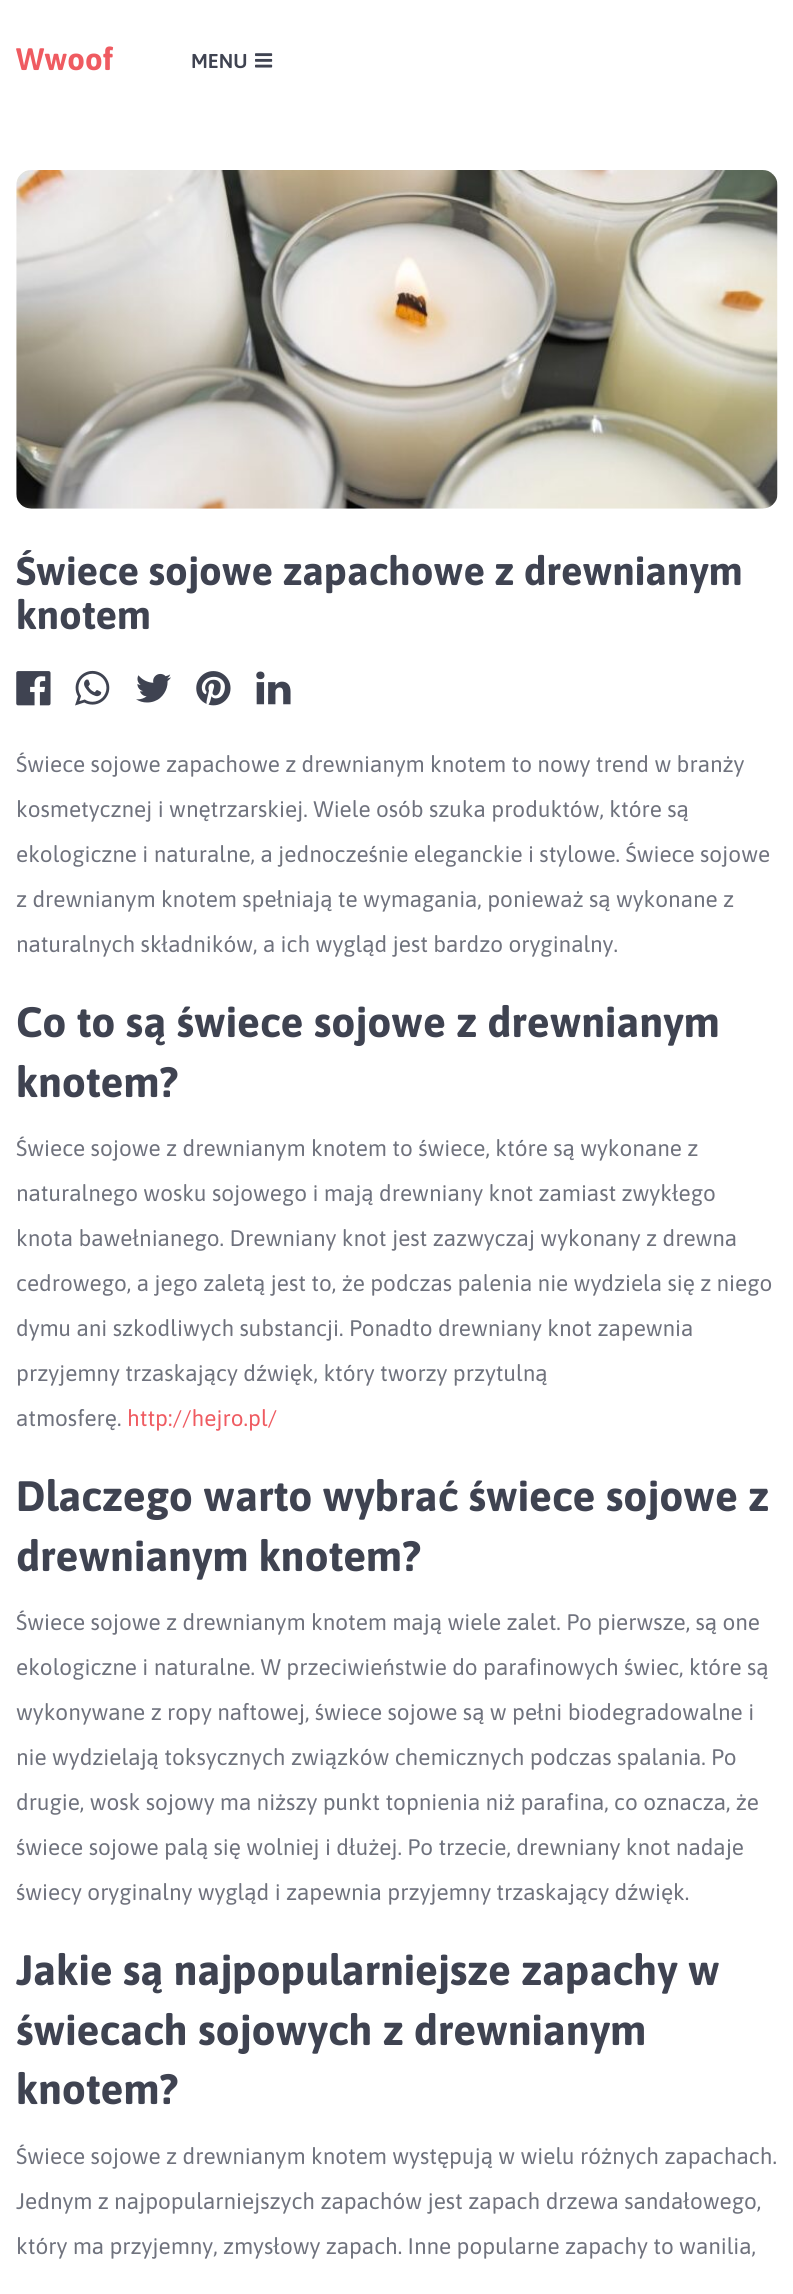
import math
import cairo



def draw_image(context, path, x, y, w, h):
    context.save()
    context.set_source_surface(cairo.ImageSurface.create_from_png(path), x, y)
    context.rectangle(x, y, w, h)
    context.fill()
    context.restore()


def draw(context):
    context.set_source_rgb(1, 1, 1)
    context.paint()
    draw_image(context, "images/1.png", 255, 53, 18, 15)
    draw_image(context, "images/2.png", 16, 170, 762, 339)
    draw_image(context, "images/3.png", 16, 671, 35, 35)
    draw_image(context, "images/4.png", 75, 670, 35, 36)
    draw_image(context, "images/5.png", 136, 673, 35, 30)
    draw_image(context, "images/6.png", 196, 671, 35, 35)
    draw_image(context, "images/7.png", 256, 671, 35, 34)
    context.select_font_face("Asap", cairo.FontSlant.NORMAL, cairo.FontWeight.BOLD)
    context.set_font_size(31)
    context.set_source_rgb(239 / 255, 91 / 255, 97 / 255)
    context.move_to(16, 70)
    context.show_text("Wwoof")
    context.select_font_face("Asap SemiBold")
    context.set_font_size(20)
    context.set_source_rgb(63 / 255, 67 / 255, 81 / 255)
    context.move_to(191, 68)
    context.show_text("MENU")
    context.select_font_face("Asap", cairo.FontSlant.NORMAL, cairo.FontWeight.BOLD)
    context.set_font_size(40)
    context.move_to(16, 585)
    context.show_text("Świece sojowe zapachowe z drewnianym")
    context.move_to(16, 629)
    context.show_text("knotem")
    context.select_font_face("Asap")
    context.set_font_size(22.5)
    context.set_source_rgb(111 / 255, 114 / 255, 125 / 255)
    context.move_to(16, 772)
    context.show_text("Świece sojowe zapachowe z drewnianym knotem to nowy trend w branży")
    context.move_to(16, 817)
    context.show_text("kosmetycznej i wnętrzarskiej. Wiele osób szuka produktów, które są")
    context.move_to(16, 862)
    context.show_text("ekologiczne i naturalne, a jednocześnie eleganckie i stylowe. Świece sojowe")
    context.move_to(16, 907)
    context.show_text("z drewnianym knotem spełniają te wymagania, ponieważ są wykonane z")
    context.move_to(16, 952)
    context.show_text("naturalnych składników, a ich wygląd jest bardzo oryginalny.")
    context.select_font_face("Asap", cairo.FontSlant.NORMAL, cairo.FontWeight.BOLD)
    context.set_font_size(42.5)
    context.set_source_rgb(63 / 255, 67 / 255, 81 / 255)
    context.move_to(16, 1037)
    context.show_text("Co to są świece sojowe z drewnianym")
    context.move_to(16, 1097)
    context.show_text("knotem?")
    context.select_font_face("Asap")
    context.set_font_size(22.5)
    context.set_source_rgb(111 / 255, 114 / 255, 125 / 255)
    context.move_to(16, 1156)
    context.show_text("Świece sojowe z drewnianym knotem to świece, które są wykonane z")
    context.move_to(16, 1201)
    context.show_text("naturalnego wosku sojowego i mają drewniany knot zamiast zwykłego")
    context.move_to(16, 1246)
    context.show_text("knota bawełnianego. Drewniany knot jest zazwyczaj wykonany z drewna")
    context.move_to(16, 1291)
    context.show_text("cedrowego, a jego zaletą jest to, że podczas palenia nie wydziela się z niego")
    context.move_to(16, 1336)
    context.show_text("dymu ani szkodliwych substancji. Ponadto drewniany knot zapewnia")
    context.move_to(16, 1381)
    context.show_text("przyjemny trzaskający dźwięk, który tworzy przytulną")
    context.move_to(16, 1426)
    context.show_text("atmosferę.")
    context.set_source_rgb(239 / 255, 91 / 255, 97 / 255)
    context.move_to(127, 1426)
    context.show_text("http://hejro.pl/")
    context.select_font_face("Asap", cairo.FontSlant.NORMAL, cairo.FontWeight.BOLD)
    context.set_font_size(42.5)
    context.set_source_rgb(63 / 255, 67 / 255, 81 / 255)
    context.move_to(16, 1511)
    context.show_text("Dlaczego warto wybrać świece sojowe z")
    context.move_to(16, 1571)
    context.show_text("drewnianym knotem?")
    context.select_font_face("Asap")
    context.set_font_size(22.5)
    context.set_source_rgb(111 / 255, 114 / 255, 125 / 255)
    context.move_to(16, 1630)
    context.show_text("Świece sojowe z drewnianym knotem mają wiele zalet. Po pierwsze, są one")
    context.move_to(16, 1675)
    context.show_text("ekologiczne i naturalne. W przeciwieństwie do parafinowych świec, które są")
    context.move_to(16, 1720)
    context.show_text("wykonywane z ropy naftowej, świece sojowe są w pełni biodegradowalne i")
    context.move_to(16, 1765)
    context.show_text("nie wydzielają toksycznych związków chemicznych podczas spalania. Po")
    context.move_to(16, 1810)
    context.show_text("drugie, wosk sojowy ma niższy punkt topnienia niż parafina, co oznacza, że")
    context.move_to(16, 1855)
    context.show_text("świece sojowe palą się wolniej i dłużej. Po trzecie, drewniany knot nadaje")
    context.move_to(16, 1900)
    context.show_text("świecy oryginalny wygląd i zapewnia przyjemny trzaskający dźwięk.")
    context.select_font_face("Asap", cairo.FontSlant.NORMAL, cairo.FontWeight.BOLD)
    context.set_font_size(42.5)
    context.set_source_rgb(63 / 255, 67 / 255, 81 / 255)
    context.move_to(16, 1985)
    context.show_text("Jakie są najpopularniejsze zapachy w")
    context.move_to(16, 2045)
    context.show_text("świecach sojowych z drewnianym")
    context.move_to(16, 2104)
    context.show_text("knotem?")
    context.select_font_face("Asap")
    context.set_font_size(22.5)
    context.set_source_rgb(111 / 255, 114 / 255, 125 / 255)
    context.move_to(16, 2164)
    context.show_text("Świece sojowe z drewnianym knotem występują w wielu różnych zapachach.")
    context.move_to(16, 2209)
    context.show_text("Jednym z najpopularniejszych zapachów jest zapach drzewa sandałowego,")
    context.move_to(16, 2254)
    context.show_text("który ma przyjemny, zmysłowy zapach. Inne popularne zapachy to wanilia,")


surface = cairo.ImageSurface(cairo.Format.RGB24, 793, 2294)
context = cairo.Context(surface)
options = cairo.FontOptions()
options.set_hint_metrics(cairo.HintMetrics.OFF)
options.set_hint_style(cairo.HintStyle.NONE)
context.set_font_options(options)
context.set_miter_limit(4)
draw(context)
surface.write_to_png("out.png")
